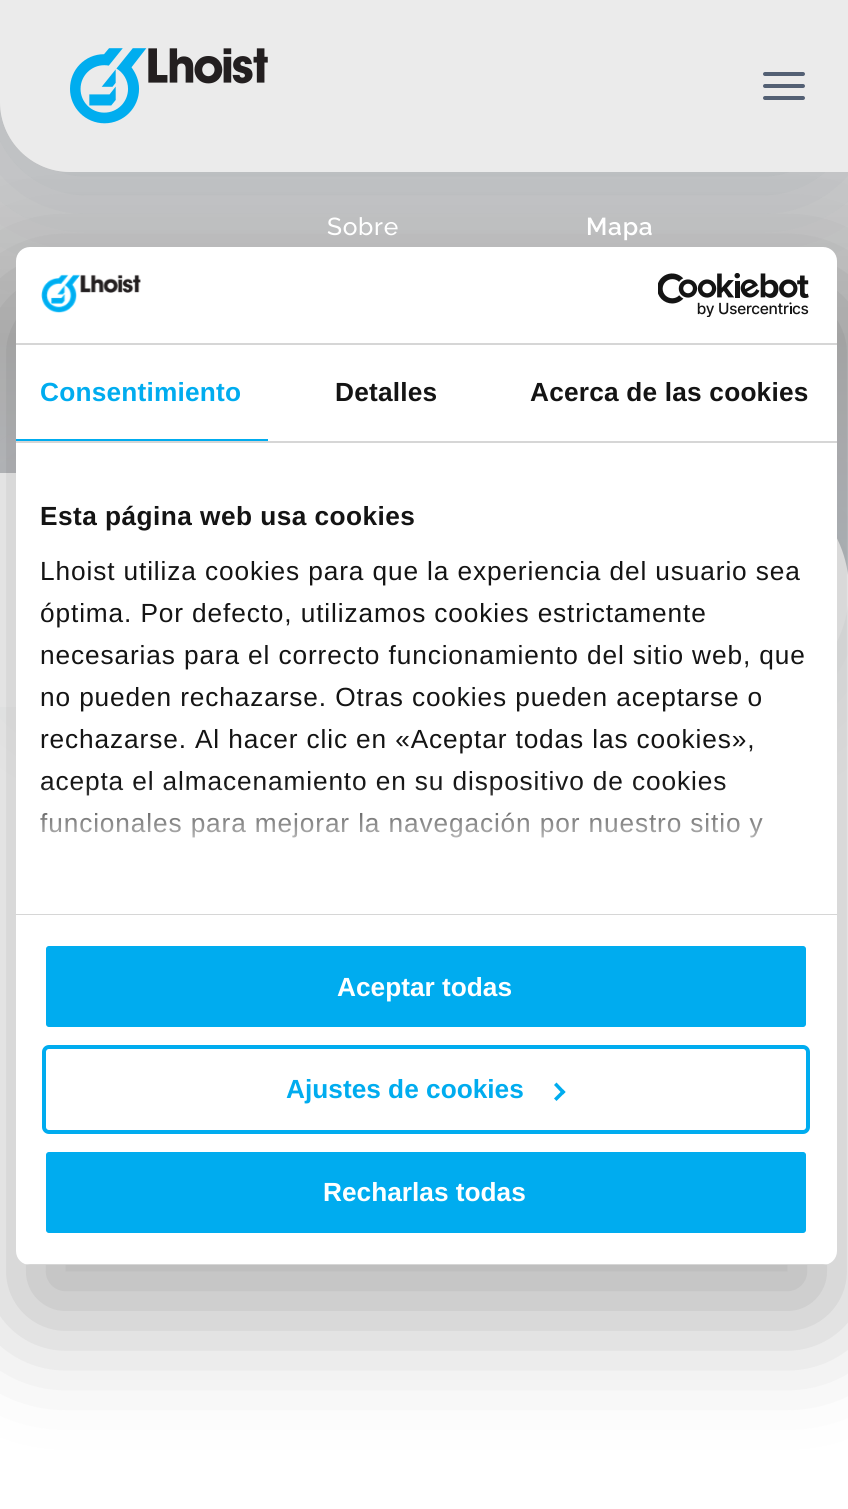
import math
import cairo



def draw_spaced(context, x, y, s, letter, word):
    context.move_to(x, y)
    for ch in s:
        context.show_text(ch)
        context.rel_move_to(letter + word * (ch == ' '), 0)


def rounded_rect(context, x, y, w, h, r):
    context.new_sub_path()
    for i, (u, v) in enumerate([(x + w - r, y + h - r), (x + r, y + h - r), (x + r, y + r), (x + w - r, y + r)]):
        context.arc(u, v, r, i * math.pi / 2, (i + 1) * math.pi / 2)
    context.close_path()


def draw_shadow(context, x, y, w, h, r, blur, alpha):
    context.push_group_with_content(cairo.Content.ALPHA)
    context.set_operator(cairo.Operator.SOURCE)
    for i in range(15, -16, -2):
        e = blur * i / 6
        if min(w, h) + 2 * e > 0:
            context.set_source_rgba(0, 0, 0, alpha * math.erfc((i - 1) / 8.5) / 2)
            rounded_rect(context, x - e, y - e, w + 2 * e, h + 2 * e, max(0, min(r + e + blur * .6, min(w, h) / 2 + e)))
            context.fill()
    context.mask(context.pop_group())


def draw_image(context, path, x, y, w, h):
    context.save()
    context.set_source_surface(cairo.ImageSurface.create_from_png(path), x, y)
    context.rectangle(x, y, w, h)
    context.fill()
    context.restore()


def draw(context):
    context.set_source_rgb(1, 1, 1)
    context.paint()
    gradient = cairo.LinearGradient(424, 0, 424, 595)
    gradient.add_color_stop_rgba(0.29, 205 / 255, 205 / 255, 205 / 255, 1)
    gradient.add_color_stop_rgba(0.57, 192 / 255, 192 / 255, 192 / 255, 1)
    gradient.add_color_stop_rgba(1, 204 / 255, 208 / 255, 214 / 255, 1)
    context.set_source(gradient)
    context.rectangle(0, 0, 848, 575)
    context.fill()
    context.save()
    context.set_fill_rule(cairo.FillRule.EVEN_ODD)
    context.new_path()
    context.move_to(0, 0)
    context.line_to(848, 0)
    context.line_to(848, 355)
    context.line_to(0, 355)
    context.close_path()
    context.move_to(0, 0)
    context.line_to(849, 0)
    context.line_to(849, 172)
    context.line_to(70, 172)
    context.curve_to(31.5, 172, 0, 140.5, 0, 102)
    context.close_path()
    context.clip()
    context.set_source_rgb(150 / 255, 158 / 255, 166 / 255)
    draw_shadow(context, 0, 14, 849, 172, 70, 56, 0.5)
    context.restore()
    context.set_source_rgba(1, 1, 1, 0.6)
    context.new_path()
    context.move_to(0, 0)
    context.line_to(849, 0)
    context.line_to(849, 172)
    context.line_to(70, 172)
    context.curve_to(31.5, 172, 0, 140.5, 0, 102)
    context.close_path()
    context.fill()
    draw_image(context, "images/1.png", 70, 48, 198, 76)
    context.set_source_rgb(83 / 255, 96 / 255, 116 / 255)
    rounded_rect(context, 763, 72, 42, 4, 2)
    context.fill()
    rounded_rect(context, 763, 84, 42, 4, 2)
    context.fill()
    rounded_rect(context, 763, 96, 42, 4, 2)
    context.fill()
    context.set_source_rgb(1, 1, 1)
    context.new_path()
    context.move_to(0, 473)
    context.line_to(726, 473)
    context.curve_to(794, 473, 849, 528, 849, 596)
    context.line_to(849, 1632)
    context.line_to(0, 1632)
    context.close_path()
    context.fill()
    context.set_source_rgb(150 / 255, 158 / 255, 166 / 255)
    draw_shadow(context, 0, 487, 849, 234, 117, 56, 0.15)
    context.set_source_rgb(1, 1, 1)
    context.new_path()
    context.move_to(0, 473)
    context.line_to(732, 473)
    context.curve_to(796.5, 473, 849, 525.5, 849, 590)
    context.curve_to(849, 654.5, 796.5, 707, 732, 707)
    context.line_to(0, 707)
    context.close_path()
    context.fill()
    context.set_source_rgb(0, 0, 0)
    draw_shadow(context, 16, 303, 821, 1018, 14, 59.5, 0.3)
    context.set_source_rgb(1, 1, 1)
    rounded_rect(context, 16, 247, 821, 1018, 14)
    context.fill()
    context.set_source_rgb(214 / 255, 214 / 255, 214 / 255)
    context.rectangle(16, 343, 821, 2)
    context.fill()
    draw_image(context, "images/2.png", 41, 274, 100, 39)
    draw_image(context, "images/3.png", 658, 273, 151, 44)
    context.rectangle(16, 441, 821, 2)
    context.fill()
    context.set_source_rgb(0, 172 / 255, 239 / 255)
    context.rectangle(16, 439, 252, 2)
    context.fill()
    context.set_source_rgb(214 / 255, 214 / 255, 214 / 255)
    context.rectangle(16, 914, 821, 1)
    context.fill()
    context.save()
    rounded_rect(context, 16, 247, 821, 1018, 14)
    context.clip()
    context.rectangle(25, 1264, 803, 1)
    context.fill()
    context.restore()
    context.set_source_rgb(0, 172 / 255, 239 / 255)
    rounded_rect(context, 44, 944, 764, 85, 5)
    context.fill_preserve()
    context.set_source_rgb(1, 1, 1)
    context.set_line_width(4)
    context.stroke()
    rounded_rect(context, 44, 1047, 764, 85, 5)
    context.set_source_rgb(0, 172 / 255, 239 / 255)
    context.stroke()
    context.new_path()
    context.move_to(556.5, 1082.5)
    context.line_to(565.5, 1092)
    context.line_to(563, 1094.5)
    context.line_to(554, 1085)
    context.close_path()
    context.fill()
    context.new_path()
    context.move_to(563, 1089.5)
    context.line_to(565.5, 1092)
    context.line_to(556.5, 1101)
    context.line_to(554, 1098.5)
    context.close_path()
    context.fill()
    rounded_rect(context, 44, 1150, 764, 85, 5)
    context.fill_preserve()
    context.set_source_rgb(1, 1, 1)
    context.stroke()
    context.select_font_face("Raleway Medium")
    context.set_font_size(24.5)
    draw_spaced(context, 327, 235, "Sobre", 0.75, 0)
    context.select_font_face("Raleway SemiBold")
    draw_spaced(context, 586, 235, "Mapa", 0.75, 0)
    context.select_font_face("Liberation Sans", cairo.FontSlant.NORMAL, cairo.FontWeight.BOLD)
    context.set_font_size(26.25)
    context.set_source_rgb(0, 172 / 255, 239 / 255)
    draw_spaced(context, 40, 401, "Consentimiento", 0.2, 0)
    context.set_source_rgb(20 / 255, 20 / 255, 20 / 255)
    draw_spaced(context, 335, 401, "Detalles", 0.2, 0)
    draw_spaced(context, 530, 401, "Acerca de las cookies", 0.2, 0)
    draw_spaced(context, 40, 525, "Esta página web usa cookies", 0.45, 0)
    context.select_font_face("Liberation Sans")
    draw_spaced(context, 40, 580, "Lhoist utiliza cookies para que la experiencia del usuario sea", 0.88, 0)
    draw_spaced(context, 40, 622, "óptima. Por defecto, utilizamos cookies estrictamente", 0.88, 0)
    draw_spaced(context, 40, 664, "necesarias para el correcto funcionamiento del sitio web, que", 0.88, 0)
    draw_spaced(context, 40, 706, "no pueden rechazarse. Otras cookies pueden aceptarse o", 0.88, 0)
    draw_spaced(context, 40, 748, "rechazarse. Al hacer clic en «Aceptar todas las cookies»,", 0.88, 0)
    draw_spaced(context, 40, 790, "acepta el almacenamiento en su dispositivo de cookies", 0.88, 0)
    draw_spaced(context, 40, 832, "funcionales para mejorar la navegación por nuestro sitio y", 0.88, 0)
    gradient = cairo.LinearGradient(414, 913, 414, 782)
    gradient.add_color_stop_rgba(0, 1, 1, 1, 1)
    gradient.add_color_stop_rgba(0.5, 1, 1, 1, 0.8)
    gradient.add_color_stop_rgba(1, 1, 1, 1, 0)
    context.set_source(gradient)
    context.rectangle(40, 784, 723, 54)
    context.fill()
    context.select_font_face("Liberation Sans", cairo.FontSlant.NORMAL, cairo.FontWeight.BOLD)
    context.set_source_rgb(1, 1, 1)
    context.move_to(337, 996)
    context.show_text("Aceptar todas")
    context.set_source_rgb(0, 172 / 255, 239 / 255)
    context.move_to(286, 1098)
    context.show_text("Ajustes de cookies")
    context.set_source_rgb(1, 1, 1)
    context.move_to(323, 1201)
    context.show_text("Recharlas todas")


surface = cairo.ImageSurface(cairo.Format.RGB24, 848, 1509)
context = cairo.Context(surface)
options = cairo.FontOptions()
options.set_hint_metrics(cairo.HintMetrics.OFF)
options.set_hint_style(cairo.HintStyle.NONE)
context.set_font_options(options)
context.set_miter_limit(4)
draw(context)
surface.write_to_png("out.png")
